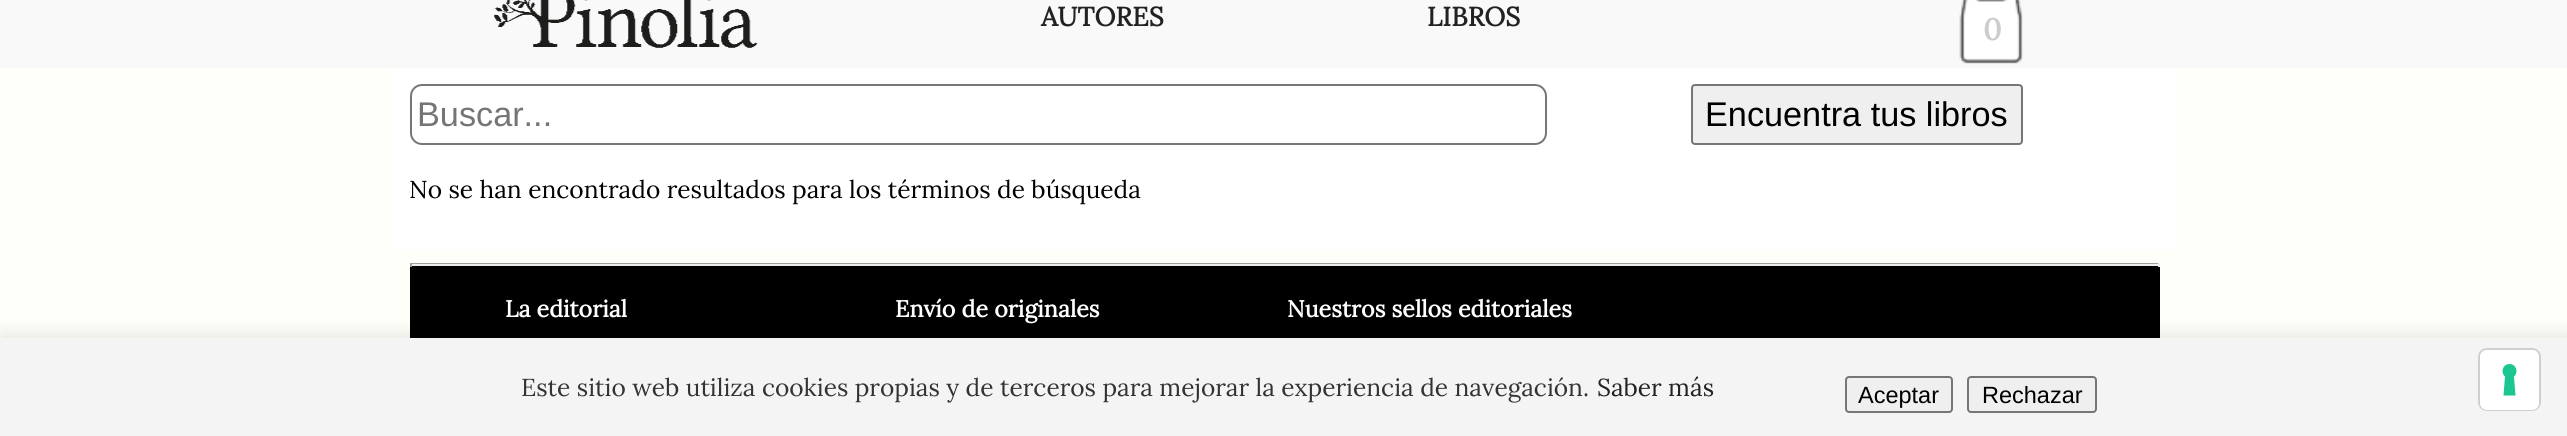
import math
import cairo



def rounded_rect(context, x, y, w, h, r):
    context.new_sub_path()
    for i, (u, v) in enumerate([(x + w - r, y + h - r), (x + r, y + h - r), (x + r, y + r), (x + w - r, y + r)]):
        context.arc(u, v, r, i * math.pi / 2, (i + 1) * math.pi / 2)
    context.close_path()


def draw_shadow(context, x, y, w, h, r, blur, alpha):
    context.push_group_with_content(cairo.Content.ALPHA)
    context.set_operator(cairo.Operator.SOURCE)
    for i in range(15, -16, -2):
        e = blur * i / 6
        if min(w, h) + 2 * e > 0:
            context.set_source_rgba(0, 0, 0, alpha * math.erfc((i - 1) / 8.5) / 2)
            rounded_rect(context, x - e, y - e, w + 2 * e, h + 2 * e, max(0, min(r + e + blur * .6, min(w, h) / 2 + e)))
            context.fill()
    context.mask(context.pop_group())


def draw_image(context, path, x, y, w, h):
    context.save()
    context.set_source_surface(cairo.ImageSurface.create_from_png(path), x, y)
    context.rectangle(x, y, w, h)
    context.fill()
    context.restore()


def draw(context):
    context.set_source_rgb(1, 1, 250 / 255)
    context.paint()
    context.set_source_rgb(249 / 255, 249 / 255, 249 / 255)
    context.rectangle(0, 0, 2567, 68)
    context.fill()
    draw_image(context, "images/1.png", 494, 0, 264, 48)
    draw_image(context, "images/2.png", 1959, 0, 64, 64)
    context.set_source_rgb(1, 1, 1)
    context.rectangle(392, 68, 1785, 182)
    context.fill()
    rounded_rect(context, 411, 85, 1135, 59, 11)
    context.set_source_rgb(119 / 255, 119 / 255, 119 / 255)
    context.stroke()
    context.set_source_rgb(239 / 255, 239 / 255, 239 / 255)
    rounded_rect(context, 1692, 85, 330, 59, 3)
    context.fill_preserve()
    context.set_source_rgb(118 / 255, 118 / 255, 118 / 255)
    context.stroke()
    context.set_source_rgb(0, 0, 0)
    context.rectangle(410, 266, 1750, 72)
    context.fill()
    context.set_source_rgb(159 / 255, 159 / 255, 159 / 255)
    context.rectangle(410, 263, 1750, 1)
    context.fill()
    context.set_source_rgb(238 / 255, 238 / 255, 238 / 255)
    context.rectangle(2158, 263, 2, 4)
    context.fill()
    context.rectangle(410, 264, 1750, 2)
    context.fill()
    context.set_source_rgb(159 / 255, 159 / 255, 159 / 255)
    context.rectangle(410, 263, 2, 4)
    context.fill()
    context.set_source_rgb(0, 0, 0)
    draw_shadow(context, 0, 334, 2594, 100, 0, 9, 0.1)
    context.set_source_rgb(244 / 255, 244 / 255, 244 / 255)
    context.rectangle(0, 338, 2567, 98)
    context.fill()
    context.set_source_rgb(239 / 255, 239 / 255, 239 / 255)
    rounded_rect(context, 1846, 377, 106, 35, 3)
    context.fill_preserve()
    context.set_source_rgb(118 / 255, 118 / 255, 118 / 255)
    context.stroke()
    context.set_source_rgb(239 / 255, 239 / 255, 239 / 255)
    rounded_rect(context, 1968, 377, 128, 35, 3)
    context.fill_preserve()
    context.set_source_rgb(118 / 255, 118 / 255, 118 / 255)
    context.stroke()
    rounded_rect(context, 2479, 349, 61, 61, 8)
    context.set_source_rgb(207 / 255, 207 / 255, 207 / 255)
    context.stroke()
    context.set_source_rgb(1, 1, 1)
    rounded_rect(context, 2480, 350, 59, 60, 7)
    context.fill()
    context.set_source_rgb(28 / 255, 198 / 255, 145 / 255)
    context.set_fill_rule(cairo.FillRule.EVEN_ODD)
    context.new_path()
    context.move_to(2509.5, 364)
    context.curve_to(2516, 364, 2519, 372, 2514, 376.5)
    context.line_to(2515.5, 395.5)
    context.line_to(2503.5, 395.5)
    context.line_to(2505, 376.5)
    context.curve_to(2500, 372, 2503, 364, 2509.5, 364)
    context.close_path()
    context.fill()
    context.select_font_face("Lora", cairo.FontSlant.NORMAL, cairo.FontWeight.BOLD)
    context.set_font_size(26.5)
    context.set_source_rgb(34 / 255, 34 / 255, 34 / 255)
    context.move_to(1041, 26)
    context.show_text("AUTORES")
    context.move_to(1427, 26)
    context.show_text("LIBROS")
    context.set_font_size(30)
    context.set_source_rgb(204 / 255, 204 / 255, 204 / 255)
    context.move_to(1983, 40)
    context.show_text("0")
    context.select_font_face("Liberation Sans")
    context.set_font_size(34.25)
    context.set_source_rgb(117 / 255, 117 / 255, 117 / 255)
    context.move_to(417, 126)
    context.show_text("Buscar...")
    context.set_source_rgb(0, 0, 0)
    context.move_to(1705, 126)
    context.show_text("Encuentra tus libros")
    context.select_font_face("Lora")
    context.set_font_size(24.5)
    context.move_to(409, 198)
    context.show_text("No se han encontrado resultados para los términos de búsqueda")
    context.select_font_face("Lora", cairo.FontSlant.NORMAL, cairo.FontWeight.BOLD)
    context.set_font_size(23.25)
    context.set_source_rgb(1, 1, 1)
    context.move_to(505, 317)
    context.show_text("La editorial")
    context.move_to(895, 317)
    context.show_text("Envío de originales")
    context.move_to(1287, 317)
    context.show_text("Nuestros sellos editoriales")
    context.select_font_face("Lora")
    context.set_font_size(24.5)
    context.set_source_rgb(51 / 255, 51 / 255, 51 / 255)
    context.move_to(521, 396)
    context.show_text("Este sitio web utiliza cookies propias y de terceros para mejorar la experiencia de navegación.")
    context.set_source_rgb(34 / 255, 34 / 255, 34 / 255)
    context.move_to(1597, 396)
    context.show_text("Saber más")
    context.select_font_face("Liberation Sans")
    context.set_font_size(23.5)
    context.set_source_rgb(0, 0, 0)
    context.move_to(1858, 403)
    context.show_text("Aceptar")
    context.move_to(1982, 403)
    context.show_text("Rechazar")


surface = cairo.ImageSurface(cairo.Format.RGB24, 2567, 436)
context = cairo.Context(surface)
options = cairo.FontOptions()
options.set_hint_metrics(cairo.HintMetrics.OFF)
options.set_hint_style(cairo.HintStyle.NONE)
context.set_font_options(options)
context.set_miter_limit(4)
draw(context)
surface.write_to_png("out.png")
